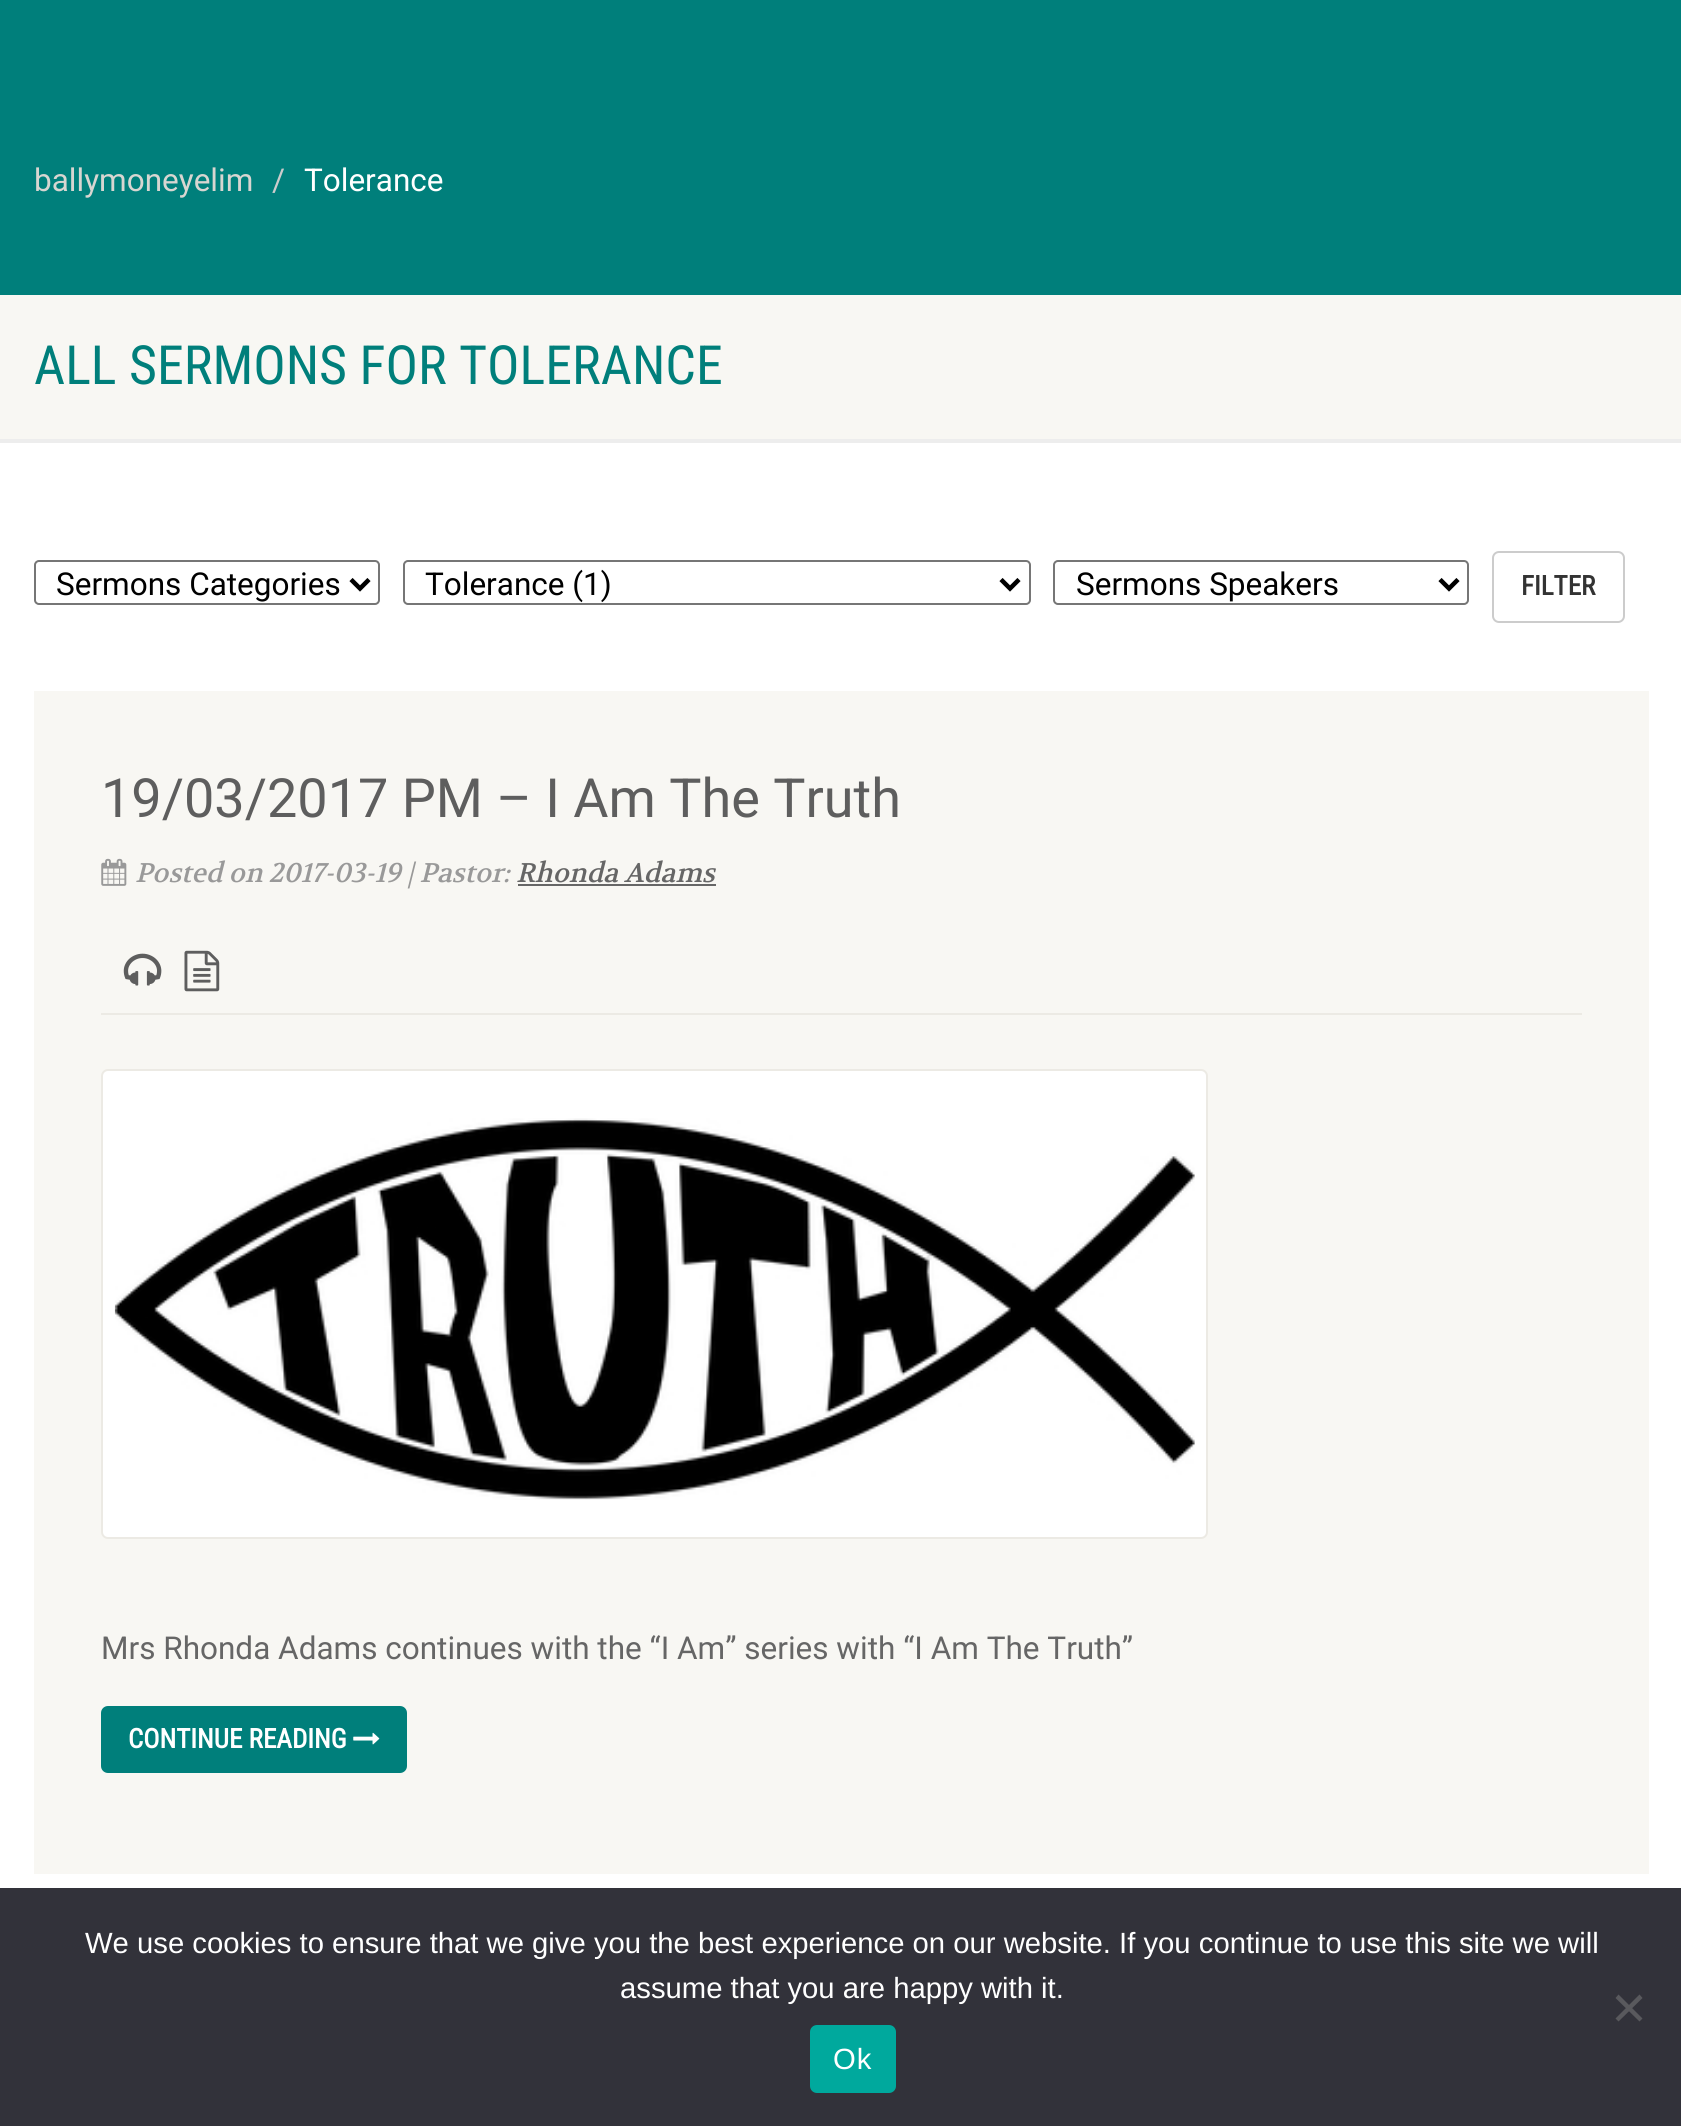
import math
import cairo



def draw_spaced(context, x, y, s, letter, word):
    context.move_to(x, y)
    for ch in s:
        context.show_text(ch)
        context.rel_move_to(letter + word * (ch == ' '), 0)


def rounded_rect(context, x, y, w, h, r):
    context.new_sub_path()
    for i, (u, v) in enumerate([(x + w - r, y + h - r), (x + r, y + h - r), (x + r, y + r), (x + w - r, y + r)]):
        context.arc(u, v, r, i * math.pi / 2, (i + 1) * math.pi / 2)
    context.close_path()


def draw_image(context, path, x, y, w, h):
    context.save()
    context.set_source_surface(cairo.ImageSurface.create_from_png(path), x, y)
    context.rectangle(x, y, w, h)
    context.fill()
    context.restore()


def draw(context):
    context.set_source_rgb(1, 1, 1)
    context.paint()
    context.set_source_rgb(0, 127 / 255, 123 / 255)
    context.rectangle(0, 0, 1681, 295)
    context.fill()
    context.set_source_rgb(237 / 255, 237 / 255, 237 / 255)
    context.rectangle(0, 439, 1681, 4)
    context.fill()
    context.set_source_rgb(248 / 255, 247 / 255, 243 / 255)
    context.rectangle(0, 295, 1681, 144)
    context.fill()
    rounded_rect(context, 35, 561, 344, 43, 4)
    context.set_source_rgb(118 / 255, 118 / 255, 118 / 255)
    context.stroke()
    context.new_path()
    context.move_to(351, 579.5)
    context.line_to(360, 588.5)
    context.line_to(369, 579.5)
    context.set_source_rgb(0, 0, 0)
    context.set_line_width(4.5)
    context.stroke()
    rounded_rect(context, 404, 561, 626, 43, 4)
    context.set_source_rgb(118 / 255, 118 / 255, 118 / 255)
    context.set_line_width(2)
    context.stroke()
    context.new_path()
    context.move_to(1001, 579.5)
    context.line_to(1010, 588.5)
    context.line_to(1019, 579.5)
    context.set_source_rgb(0, 0, 0)
    context.set_line_width(4.5)
    context.stroke()
    rounded_rect(context, 1054, 561, 414, 43, 4)
    context.set_source_rgb(118 / 255, 118 / 255, 118 / 255)
    context.set_line_width(2)
    context.stroke()
    context.new_path()
    context.move_to(1440, 579.5)
    context.line_to(1449, 588.5)
    context.line_to(1458, 579.5)
    context.set_source_rgb(0, 0, 0)
    context.set_line_width(4.5)
    context.stroke()
    rounded_rect(context, 1493, 552, 131, 70, 6)
    context.set_source_rgb(204 / 255, 204 / 255, 204 / 255)
    context.set_line_width(2)
    context.stroke()
    context.set_source_rgb(248 / 255, 247 / 255, 243 / 255)
    context.rectangle(34, 691, 1615, 1183)
    context.fill()
    context.set_source_rgb(236 / 255, 234 / 255, 228 / 255)
    context.rectangle(101, 1013, 1481, 2)
    context.fill()
    draw_image(context, "images/1.png", 101, 858, 26, 28)
    context.set_source_rgb(102 / 255, 102 / 255, 102 / 255)
    context.rectangle(518, 884, 198, 2)
    context.fill()
    draw_image(context, "images/2.png", 123, 953, 39, 33)
    draw_image(context, "images/3.png", 184, 950, 36, 42)
    context.set_source_rgb(1, 1, 1)
    rounded_rect(context, 102, 1070, 1105, 468, 6)
    context.fill_preserve()
    context.set_source_rgb(236 / 255, 234 / 255, 228 / 255)
    context.stroke()
    draw_image(context, "images/4.png", 114, 1118, 1081, 382)
    context.set_source_rgb(0, 127 / 255, 123 / 255)
    rounded_rect(context, 101, 1706, 306, 67, 7)
    context.fill()
    draw_image(context, "images/5.png", 353, 1732, 27, 13)
    context.set_source_rgb(50 / 255, 50 / 255, 58 / 255)
    context.rectangle(0, 1888, 1681, 238)
    context.fill()
    context.set_source_rgb(89 / 255, 89 / 255, 93 / 255)
    context.new_path()
    context.move_to(1639.5, 1994.5)
    context.line_to(1642.5, 1998)
    context.line_to(1618.5, 2021.5)
    context.line_to(1615.5, 2018.5)
    context.close_path()
    context.fill()
    context.new_path()
    context.move_to(1615.5, 1998)
    context.line_to(1618.5, 1994.5)
    context.line_to(1642.5, 2018.5)
    context.line_to(1639.5, 2021.5)
    context.close_path()
    context.fill()
    context.set_source_rgb(0, 169 / 255, 157 / 255)
    rounded_rect(context, 810, 2025, 86, 68, 7)
    context.fill()
    context.select_font_face("Roboto")
    context.set_font_size(31.5)
    context.set_source_rgb(216 / 255, 214 / 255, 209 / 255)
    context.move_to(34, 191)
    context.show_text("ballymoneyelim")
    context.set_source_rgb(204 / 255, 204 / 255, 204 / 255)
    context.move_to(272, 191)
    context.show_text("/")
    context.set_source_rgb(1, 1, 1)
    context.move_to(304, 191)
    context.show_text("Tolerance")
    context.select_font_face("Roboto Condensed")
    context.set_font_size(54)
    context.set_source_rgb(0, 127 / 255, 123 / 255)
    context.move_to(34, 384)
    context.show_text("ALL SERMONS FOR TOLERANCE")
    context.select_font_face("Roboto")
    context.set_font_size(31.5)
    context.set_source_rgb(0, 0, 0)
    context.move_to(56, 595)
    context.show_text("Sermons Categories")
    context.move_to(425, 595)
    context.show_text("Tolerance (1)")
    context.move_to(1076, 595)
    context.show_text("Sermons Speakers")
    context.select_font_face("Roboto Condensed", cairo.FontSlant.NORMAL, cairo.FontWeight.BOLD)
    context.set_font_size(27)
    context.set_source_rgb(51 / 255, 51 / 255, 51 / 255)
    context.move_to(1521, 595)
    context.show_text("FILTER")
    context.select_font_face("Roboto")
    context.set_font_size(54)
    context.set_source_rgb(94 / 255, 94 / 255, 94 / 255)
    context.move_to(101, 817)
    context.show_text("19/03/2017 PM – I Am The Truth")
    context.select_font_face("Volkhov", cairo.FontSlant.ITALIC)
    context.set_font_size(27)
    context.set_source_rgb(153 / 255, 153 / 255, 153 / 255)
    context.move_to(135, 882)
    context.show_text("Posted on 2017-03-19 | Pastor:")
    context.set_source_rgb(102 / 255, 102 / 255, 102 / 255)
    context.move_to(516, 882)
    context.show_text("Rhonda Adams")
    context.select_font_face("Roboto")
    context.set_font_size(31.5)
    context.move_to(101, 1659)
    context.show_text("Mrs Rhonda Adams continues with the “I Am” series with “I Am The Truth”")
    context.select_font_face("Roboto Condensed", cairo.FontSlant.NORMAL, cairo.FontWeight.BOLD)
    context.set_font_size(27)
    context.set_source_rgb(1, 1, 1)
    context.move_to(128, 1748)
    context.show_text("CONTINUE READING")
    context.select_font_face("Liberation Sans")
    context.set_font_size(29.25)
    context.move_to(85, 1953)
    context.show_text("We use cookies to ensure that we give you the best experience on our website. If you continue to use this site we will")
    context.move_to(620, 1998)
    context.show_text("assume that you are happy with it.")
    draw_spaced(context, 833, 2069, "Ok", 1, 0)


surface = cairo.ImageSurface(cairo.Format.RGB24, 1681, 2126)
context = cairo.Context(surface)
options = cairo.FontOptions()
options.set_hint_metrics(cairo.HintMetrics.OFF)
options.set_hint_style(cairo.HintStyle.NONE)
context.set_font_options(options)
context.set_miter_limit(4)
draw(context)
surface.write_to_png("out.png")
